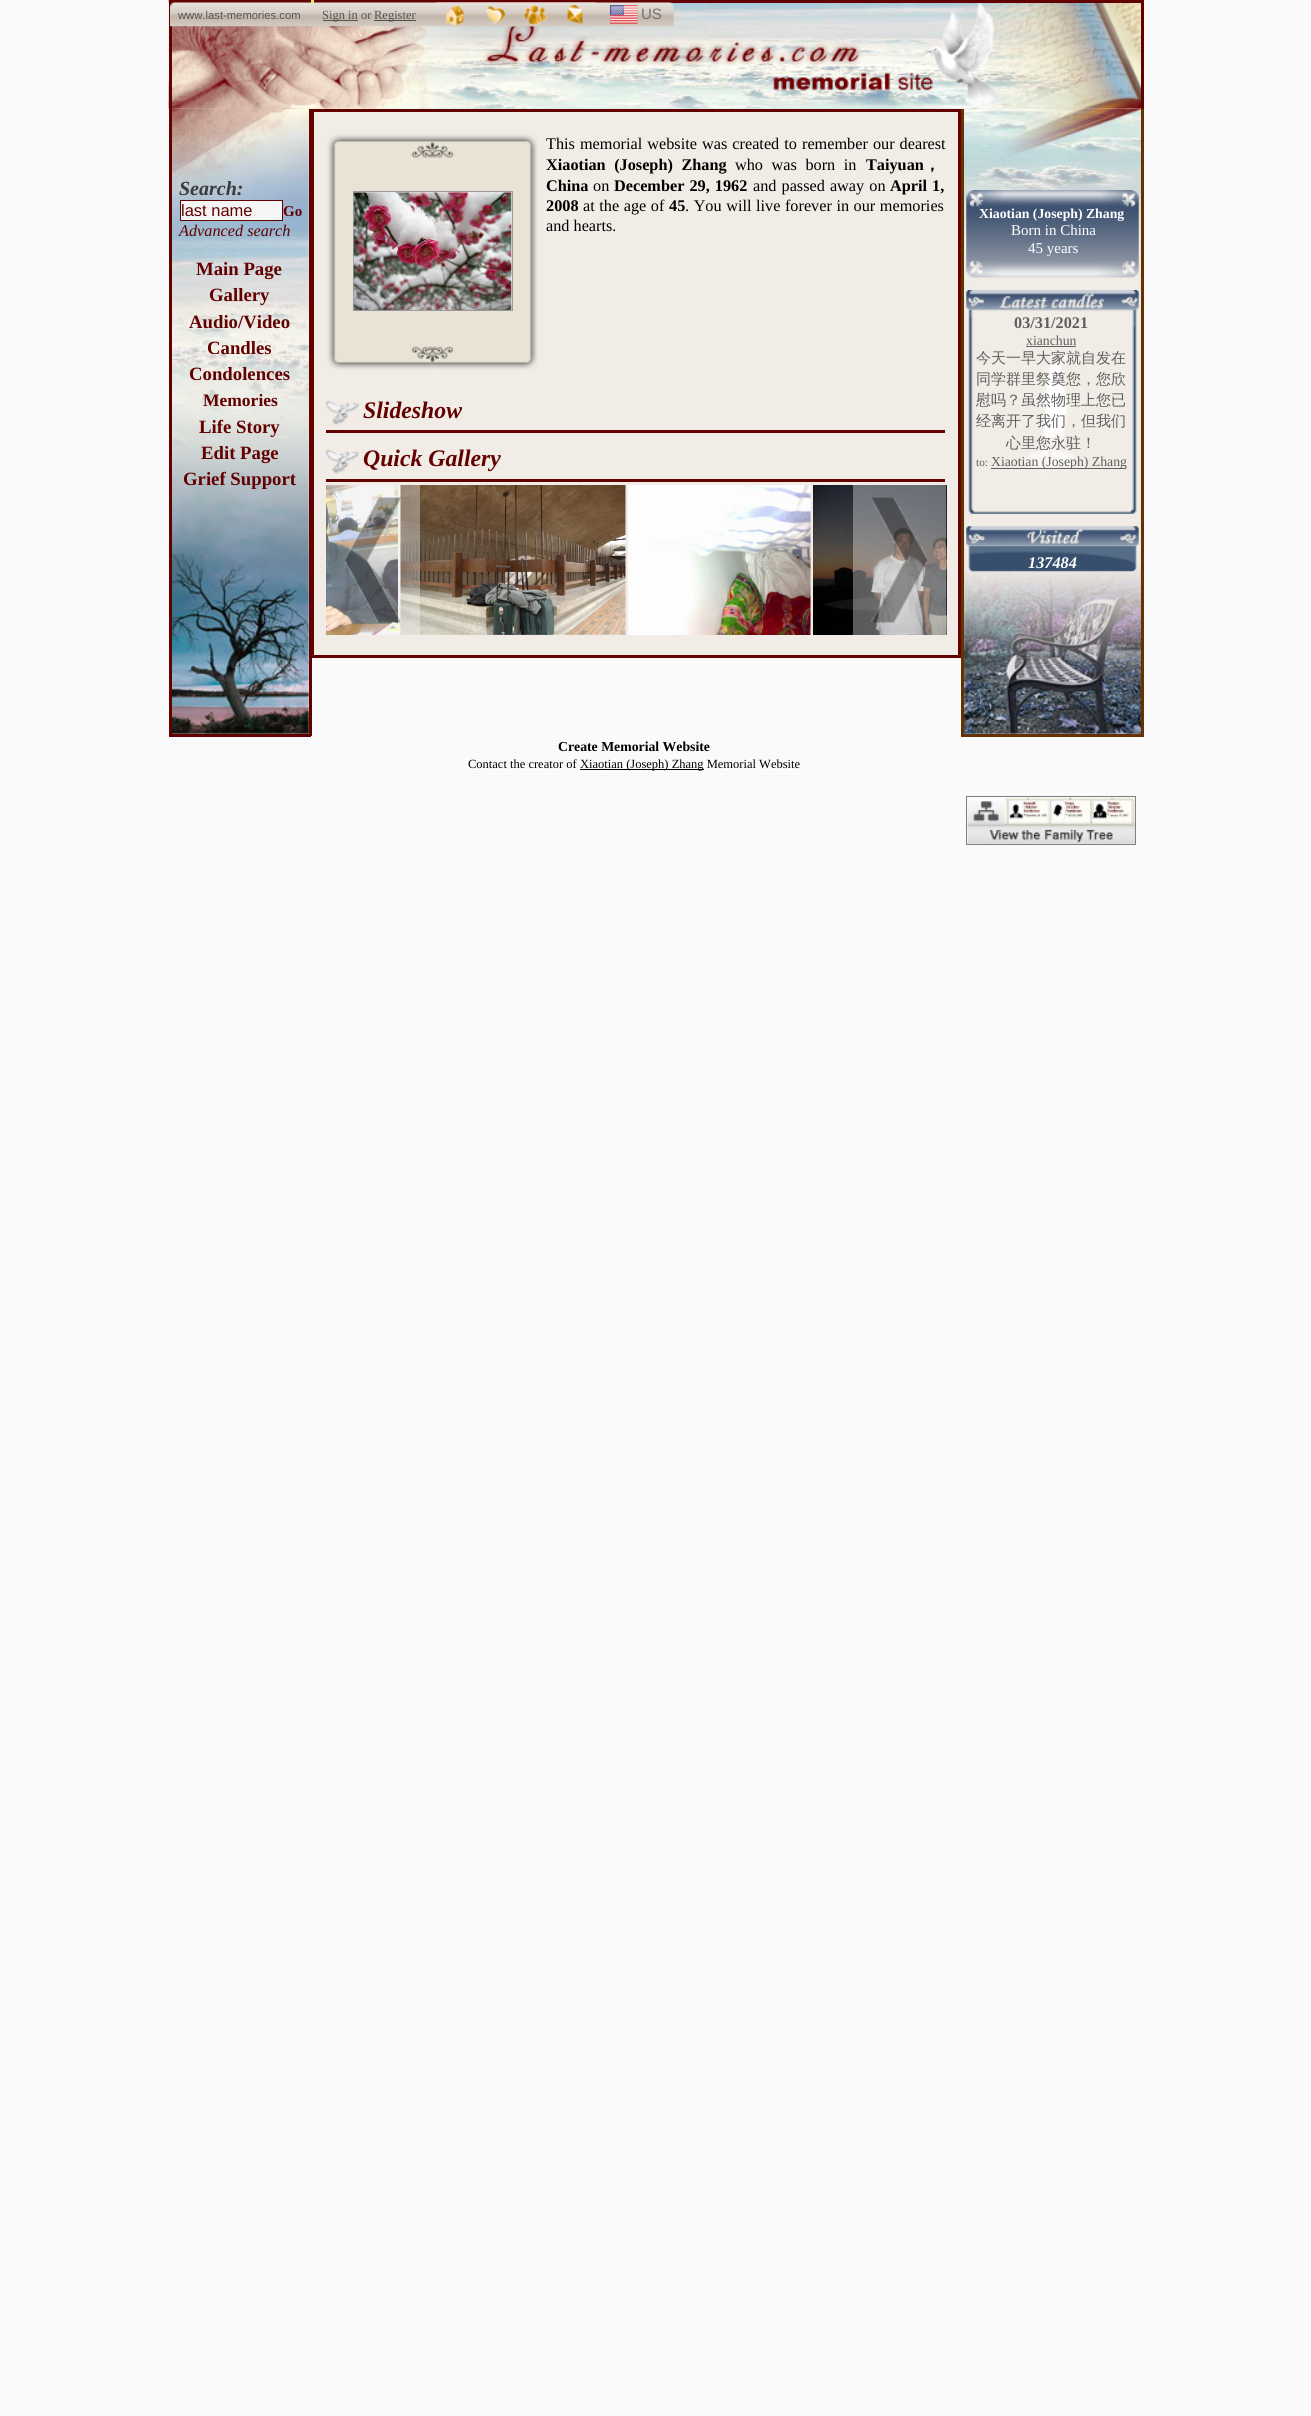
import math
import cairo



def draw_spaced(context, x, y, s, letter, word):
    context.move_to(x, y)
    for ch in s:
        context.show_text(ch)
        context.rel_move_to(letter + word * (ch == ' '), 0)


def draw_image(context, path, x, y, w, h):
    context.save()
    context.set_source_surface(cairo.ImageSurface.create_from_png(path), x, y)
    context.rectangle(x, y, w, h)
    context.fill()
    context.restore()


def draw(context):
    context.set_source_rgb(1, 1, 1)
    context.paint()
    draw_image(context, "images/1.png", 0, 0, 1311, 2416)
    draw_image(context, "images/6.png", 168, 0, 973, 109)
    context.set_source_rgb(99 / 255, 0, 0)
    context.rectangle(169, 0, 975, 3)
    context.fill()
    context.rectangle(169, 0, 3, 109)
    context.fill()
    draw_image(context, "images/7.png", 170, 2, 504, 25)
    context.set_source_rgba(241 / 255, 241 / 255, 87 / 255, 0.96)
    context.rectangle(311, 0, 3, 3)
    context.fill()
    draw_image(context, "images/2.png", 312, 0, 2, 3)
    draw_image(context, "images/3.png", 312, 0, 2, 3)
    draw_image(context, "images/4.png", 312, 0, 2, 3)
    draw_image(context, "images/5.png", 312, 1, 2, 2)
    context.set_source_rgb(238 / 255, 237 / 255, 47 / 255)
    context.rectangle(312, 2, 1, 1)
    context.fill()
    context.set_source_rgb(99 / 255, 0, 0)
    context.rectangle(1141, 0, 3, 109)
    context.fill()
    context.set_source_rgb(82 / 255, 82 / 255, 82 / 255)
    context.rectangle(323, 20, 35, 1)
    context.fill()
    context.rectangle(374, 20, 42, 1)
    context.fill()
    draw_image(context, "images/8.png", 436, 2, 41, 25)
    draw_image(context, "images/9.png", 476, 2, 41, 25)
    draw_image(context, "images/10.png", 516, 2, 41, 25)
    draw_image(context, "images/11.png", 556, 2, 41, 25)
    draw_image(context, "images/12.png", 610, 5, 28, 19)
    context.set_source_rgb(241 / 255, 236 / 255, 229 / 255)
    context.rectangle(172, 109, 137, 625)
    context.fill()
    draw_image(context, "images/13.png", 171, 108, 138, 626)
    context.set_source_rgb(99 / 255, 0, 0)
    context.rectangle(309, 109, 3, 627)
    context.fill()
    context.rectangle(169, 734, 142, 3)
    context.fill()
    context.rectangle(169, 109, 3, 627)
    context.fill()
    context.set_source_rgb(245 / 255, 245 / 255, 245 / 255)
    context.rectangle(180.5, 200.5, 102, 20)
    context.fill_preserve()
    context.set_source_rgb(99 / 255, 0, 0)
    context.set_line_width(1)
    context.stroke()
    context.set_source_rgb(241 / 255, 236 / 255, 229 / 255)
    context.rectangle(312.5, 110.5, 647, 546)
    context.fill_preserve()
    context.set_source_rgb(99 / 255, 0, 0)
    context.set_line_width(3)
    context.stroke()
    draw_image(context, "images/14.png", 327, 134, 211, 236)
    context.rectangle(353.5, 191.5, 159, 119)
    context.set_source_rgb(153 / 255, 153 / 255, 153 / 255)
    context.set_line_width(1)
    context.stroke()
    draw_image(context, "images/15.png", 353, 192, 159, 118)
    context.set_source_rgb(99 / 255, 0, 0)
    context.rectangle(326, 430, 619, 3)
    context.fill()
    draw_image(context, "images/16.png", 326, 401, 33, 24)
    context.rectangle(326, 479, 619, 3)
    context.fill()
    draw_image(context, "images/17.png", 326, 450, 33, 24)
    draw_image(context, "images/18.png", 326, 485, 72, 150)
    draw_image(context, "images/19.png", 400, 485, 226, 150)
    draw_image(context, "images/20.png", 628, 485, 183, 150)
    draw_image(context, "images/21.png", 813, 485, 134, 150)
    context.set_source_rgba(1, 1, 1, 0.35)
    context.rectangle(326, 485, 94, 150)
    context.fill()
    draw_image(context, "images/22.png", 345, 497, 57, 126)
    context.rectangle(853, 485, 93, 150)
    context.fill()
    draw_image(context, "images/23.png", 871, 497, 57, 126)
    draw_image(context, "images/24.png", 963, 108, 179, 626)
    context.set_source_rgb(102 / 255, 51 / 255, 0)
    context.rectangle(1141, 109, 3, 627)
    context.fill()
    context.rectangle(961, 734, 183, 3)
    context.fill()
    context.rectangle(961, 109, 3, 627)
    context.fill()
    draw_image(context, "images/25.png", 966, 190, 173, 88)
    draw_image(context, "images/26.png", 966, 290, 173, 224)
    context.set_source_rgb(95 / 255, 95 / 255, 95 / 255)
    context.rectangle(1026, 346, 50, 1)
    context.fill()
    context.rectangle(991, 468, 135, 1)
    context.fill()
    draw_image(context, "images/27.png", 966, 526, 173, 46)
    context.rectangle(966.5, 796.5, 169, 48)
    context.set_source_rgb(128 / 255, 128 / 255, 128 / 255)
    context.stroke()
    draw_image(context, "images/28.png", 967, 797, 168, 47)
    context.set_source_rgb(0, 0, 0)
    context.rectangle(580, 769, 124, 1)
    context.fill()
    context.select_font_face("Liberation Sans")
    context.set_font_size(11.25)
    context.set_source_rgb(82 / 255, 82 / 255, 82 / 255)
    context.move_to(178, 19)
    context.show_text("www.last-memories.com")
    context.select_font_face("Liberation Serif")
    context.set_font_size(12.5)
    context.move_to(322, 19)
    context.show_text("Sign in or")
    context.move_to(374, 19)
    context.show_text("Register")
    context.select_font_face("Liberation Sans")
    context.set_font_size(15)
    context.set_source_rgb(112 / 255, 112 / 255, 112 / 255)
    context.move_to(641, 19)
    context.show_text("US")
    context.select_font_face("Liberation Serif", cairo.FontSlant.ITALIC, cairo.FontWeight.BOLD)
    context.set_font_size(20)
    context.set_source_rgb(58 / 255, 58 / 255, 58 / 255)
    context.move_to(179, 195)
    context.show_text("Search:")
    context.select_font_face("Liberation Sans")
    context.set_font_size(16.5)
    context.set_source_rgb(99 / 255, 0, 0)
    context.move_to(181, 216)
    context.show_text("last name")
    context.select_font_face("Liberation Serif", cairo.FontSlant.NORMAL, cairo.FontWeight.BOLD)
    context.set_font_size(15)
    context.move_to(283, 216)
    context.show_text("Go")
    context.select_font_face("Liberation Serif", cairo.FontSlant.ITALIC)
    context.set_font_size(16.25)
    context.move_to(179, 236)
    context.show_text("Advanced search")
    context.select_font_face("Liberation Serif", cairo.FontSlant.NORMAL, cairo.FontWeight.BOLD)
    context.set_font_size(18.75)
    context.move_to(196, 275)
    context.show_text("Main Page")
    context.move_to(209, 301)
    context.show_text("Gallery")
    context.move_to(189, 328)
    context.show_text("Audio/Video")
    context.move_to(207, 354)
    context.show_text("Candles")
    context.move_to(189, 380)
    context.show_text("Condolences")
    context.set_font_size(17.5)
    context.move_to(203, 406)
    context.show_text("Memories")
    context.set_font_size(18.75)
    context.move_to(199, 433)
    context.show_text("Life Story")
    context.move_to(201, 459)
    context.show_text("Edit Page")
    context.move_to(183, 485)
    context.show_text("Grief Support")
    context.select_font_face("Liberation Serif")
    context.set_font_size(16.25)
    context.set_source_rgb(0, 0, 0)
    draw_spaced(context, 546, 149, "This memorial website was created to remember our dearest", 0, 1)
    context.select_font_face("Liberation Serif", cairo.FontSlant.NORMAL, cairo.FontWeight.BOLD)
    draw_spaced(context, 546, 170, "Xiaotian (Joseph) Zhang", 0, 4.5)
    context.select_font_face("Liberation Serif")
    draw_spaced(context, 735, 170, "who was born in", 0, 4.5)
    context.select_font_face("Liberation Serif", cairo.FontSlant.NORMAL, cairo.FontWeight.BOLD)
    context.move_to(866, 170)
    context.show_text("Taiyuan")
    context.select_font_face("WenQuanYi Zen Hei", cairo.FontSlant.NORMAL, cairo.FontWeight.BOLD)
    context.move_to(924, 170)
    context.show_text("，")
    context.select_font_face("Liberation Serif", cairo.FontSlant.NORMAL, cairo.FontWeight.BOLD)
    context.move_to(546, 191)
    context.show_text("China")
    context.select_font_face("Liberation Serif")
    context.move_to(593, 191)
    context.show_text("on")
    context.select_font_face("Liberation Serif", cairo.FontSlant.NORMAL, cairo.FontWeight.BOLD)
    draw_spaced(context, 614, 191, "December 29, 1962", 0, 1)
    context.select_font_face("Liberation Serif")
    draw_spaced(context, 753, 191, "and passed away on", 0, 1)
    context.select_font_face("Liberation Serif", cairo.FontSlant.NORMAL, cairo.FontWeight.BOLD)
    draw_spaced(context, 890, 191, "April 1,", 0, 1)
    context.move_to(546, 211)
    context.show_text("2008")
    context.select_font_face("Liberation Serif")
    draw_spaced(context, 583, 211, "at the age of", 0, 0.5)
    context.select_font_face("Liberation Serif", cairo.FontSlant.NORMAL, cairo.FontWeight.BOLD)
    context.move_to(669, 211)
    context.show_text("45")
    context.select_font_face("Liberation Serif")
    draw_spaced(context, 685, 211, ". You will live forever in our memories", 0, 0.5)
    context.move_to(546, 231)
    context.show_text("and hearts.")
    context.select_font_face("Liberation Serif", cairo.FontSlant.ITALIC, cairo.FontWeight.BOLD)
    context.set_font_size(23.75)
    context.set_source_rgb(99 / 255, 0, 0)
    context.move_to(363, 418)
    context.show_text("Slideshow")
    context.move_to(363, 466)
    context.show_text("Quick Gallery")
    context.select_font_face("Liberation Serif", cairo.FontSlant.NORMAL, cairo.FontWeight.BOLD)
    context.set_font_size(13.75)
    context.set_source_rgb(1, 1, 1)
    context.move_to(979, 218)
    context.show_text("Xiaotian (Joseph) Zhang")
    context.select_font_face("Liberation Serif")
    context.set_font_size(15)
    context.move_to(1011, 235)
    context.show_text("Born in China")
    context.move_to(1028, 253)
    context.show_text("45 years")
    context.select_font_face("Liberation Serif", cairo.FontSlant.NORMAL, cairo.FontWeight.BOLD)
    context.set_font_size(16.25)
    context.set_source_rgb(95 / 255, 95 / 255, 95 / 255)
    context.move_to(1014, 328)
    context.show_text("03/31/2021")
    context.select_font_face("Liberation Serif")
    context.set_font_size(13.75)
    context.move_to(1026, 345)
    context.show_text("xianchun")
    context.select_font_face("WenQuanYi Zen Hei Medium")
    context.set_font_size(15)
    context.move_to(976, 363)
    context.show_text("今天一早大家就自发在")
    context.move_to(976, 384)
    context.show_text("同学群里祭奠您，您欣")
    context.move_to(976, 405)
    context.show_text("慰吗？虽然物理上您已")
    context.move_to(976, 426)
    context.show_text("经离开了我们，但我们")
    context.move_to(1006, 448)
    context.show_text("心里您永驻！")
    context.select_font_face("Liberation Serif")
    context.set_font_size(11.25)
    context.move_to(976, 466)
    context.show_text("to:")
    context.set_font_size(13.75)
    context.move_to(991, 466)
    context.show_text("Xiaotian (Joseph) Zhang")
    context.select_font_face("Liberation Serif", cairo.FontSlant.ITALIC, cairo.FontWeight.BOLD)
    context.set_font_size(16.25)
    context.set_source_rgb(1, 1, 1)
    context.move_to(1028, 568)
    context.show_text("137484")
    context.select_font_face("Liberation Serif", cairo.FontSlant.NORMAL, cairo.FontWeight.BOLD)
    context.set_font_size(13.75)
    context.set_source_rgb(0, 0, 0)
    context.move_to(558, 751)
    context.show_text("Create Memorial Website")
    context.select_font_face("Liberation Serif")
    context.set_font_size(12.5)
    context.move_to(468, 768)
    context.show_text("Contact the creator of")
    context.move_to(580, 768)
    context.show_text("Xiaotian (Joseph) Zhang Memorial Website")


surface = cairo.ImageSurface(cairo.Format.RGB24, 1311, 2416)
context = cairo.Context(surface)
options = cairo.FontOptions()
options.set_hint_metrics(cairo.HintMetrics.OFF)
options.set_hint_style(cairo.HintStyle.NONE)
context.set_font_options(options)
context.set_miter_limit(4)
draw(context)
surface.write_to_png("out.png")
